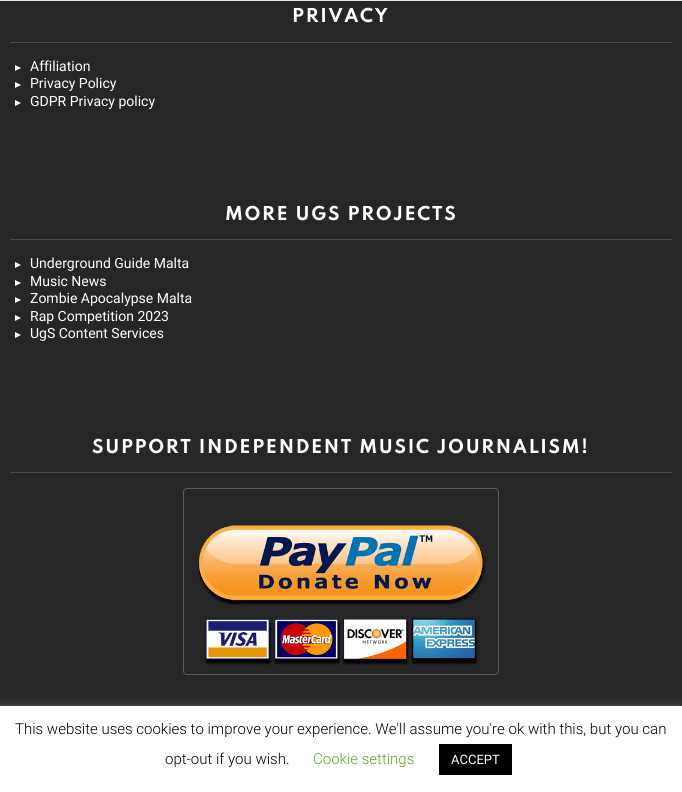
import math
import cairo



def draw_spaced(context, x, y, s, letter, word):
    context.move_to(x, y)
    for ch in s:
        context.show_text(ch)
        context.rel_move_to(letter + word * (ch == ' '), 0)


def rounded_rect(context, x, y, w, h, r):
    context.new_sub_path()
    for i, (u, v) in enumerate([(x + w - r, y + h - r), (x + r, y + h - r), (x + r, y + r), (x + w - r, y + r)]):
        context.arc(u, v, r, i * math.pi / 2, (i + 1) * math.pi / 2)
    context.close_path()


def draw_shadow(context, x, y, w, h, r, blur, alpha):
    context.push_group_with_content(cairo.Content.ALPHA)
    context.set_operator(cairo.Operator.SOURCE)
    for i in range(15, -16, -2):
        e = blur * i / 6
        if min(w, h) + 2 * e > 0:
            context.set_source_rgba(0, 0, 0, alpha * math.erfc((i - 1) / 8.5) / 2)
            rounded_rect(context, x - e, y - e, w + 2 * e, h + 2 * e, max(0, min(r + e + blur * .6, min(w, h) / 2 + e)))
            context.fill()
    context.mask(context.pop_group())


def draw_image(context, path, x, y, w, h):
    context.save()
    context.set_source_surface(cairo.ImageSurface.create_from_png(path), x, y)
    context.rectangle(x, y, w, h)
    context.fill()
    context.restore()


def draw(context):
    context.set_source_rgb(38 / 255, 38 / 255, 38 / 255)
    context.paint()
    context.set_source_rgb(230 / 255, 230 / 255, 230 / 255)
    context.rectangle(0, 0, 682, 1)
    context.fill()
    context.set_source_rgb(74 / 255, 74 / 255, 74 / 255)
    context.rectangle(10, 42, 662, 1)
    context.fill()
    context.set_source_rgb(1, 1, 1)
    context.new_path()
    context.move_to(21, 68)
    context.line_to(15, 65)
    context.line_to(15, 71)
    context.close_path()
    context.fill()
    context.new_path()
    context.move_to(21, 85)
    context.line_to(15, 82)
    context.line_to(15, 88)
    context.close_path()
    context.fill()
    context.new_path()
    context.move_to(21, 103)
    context.line_to(15, 100)
    context.line_to(15, 106)
    context.close_path()
    context.fill()
    context.set_source_rgb(74 / 255, 74 / 255, 74 / 255)
    context.rectangle(10, 239, 662, 1)
    context.fill()
    context.set_source_rgb(1, 1, 1)
    context.new_path()
    context.move_to(21, 265)
    context.line_to(15, 262)
    context.line_to(15, 268)
    context.close_path()
    context.fill()
    context.new_path()
    context.move_to(21, 283)
    context.line_to(15, 280)
    context.line_to(15, 286)
    context.close_path()
    context.fill()
    context.new_path()
    context.move_to(21, 300)
    context.line_to(15, 297)
    context.line_to(15, 303)
    context.close_path()
    context.fill()
    context.new_path()
    context.move_to(21, 318)
    context.line_to(15, 315)
    context.line_to(15, 321)
    context.close_path()
    context.fill()
    context.new_path()
    context.move_to(21, 335)
    context.line_to(15, 332)
    context.line_to(15, 338)
    context.close_path()
    context.fill()
    context.set_source_rgb(74 / 255, 74 / 255, 74 / 255)
    context.rectangle(10, 472, 662, 1)
    context.fill()
    rounded_rect(context, 183.5, 488.5, 315, 186, 3.5)
    context.set_source_rgb(89 / 255, 89 / 255, 89 / 255)
    context.set_line_width(1)
    context.stroke()
    draw_image(context, "images/1.png", 198, 525, 287, 140)
    context.set_source_rgb(172 / 255, 171 / 255, 171 / 255)
    draw_shadow(context, 0, 705, 682, 86, 0, 5, 0.3)
    context.set_source_rgb(1, 1, 1)
    context.rectangle(0, 706, 682, 86)
    context.fill()
    context.set_source_rgb(0, 0, 0)
    context.rectangle(439, 744, 73, 31)
    context.fill()
    context.select_font_face("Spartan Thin", cairo.FontSlant.NORMAL, cairo.FontWeight.BOLD)
    context.set_font_size(17)
    context.set_source_rgb(1, 1, 1)
    draw_spaced(context, 292, 22, "PRIVACY", 1.65, 0)
    context.select_font_face("Roboto")
    context.set_font_size(14)
    context.move_to(30, 71)
    context.show_text("Affiliation")
    context.move_to(30, 88)
    context.show_text("Privacy Policy")
    context.move_to(30, 106)
    context.show_text("GDPR Privacy policy")
    context.select_font_face("Spartan Thin", cairo.FontSlant.NORMAL, cairo.FontWeight.BOLD)
    context.set_font_size(17)
    draw_spaced(context, 225, 220, "MORE UGS PROJECTS", 1.65, 0)
    context.select_font_face("Roboto")
    context.set_font_size(14)
    context.move_to(30, 268)
    context.show_text("Underground Guide Malta")
    context.move_to(30, 286)
    context.show_text("Music News")
    context.move_to(30, 303)
    context.show_text("Zombie Apocalypse Malta")
    context.move_to(30, 321)
    context.show_text("Rap Competition 2023")
    context.move_to(30, 338)
    context.show_text("UgS Content Services")
    context.select_font_face("Spartan Thin", cairo.FontSlant.NORMAL, cairo.FontWeight.BOLD)
    context.set_font_size(17)
    draw_spaced(context, 92, 453, "SUPPORT INDEPENDENT MUSIC JOURNALISM!", 1.65, 0)
    context.select_font_face("Roboto Light")
    context.set_font_size(15)
    context.set_source_rgb(0, 0, 0)
    context.move_to(15, 734)
    context.show_text("This website uses cookies to improve your experience. We'll assume you're ok with this, but you can")
    context.move_to(165, 764)
    context.show_text("opt-out if you wish.")
    context.set_source_rgb(98 / 255, 163 / 255, 41 / 255)
    context.move_to(313, 764)
    context.show_text("Cookie settings")
    context.select_font_face("Roboto")
    context.set_font_size(13)
    context.set_source_rgb(1, 1, 1)
    context.move_to(451, 764)
    context.show_text("ACCEPT")


surface = cairo.ImageSurface(cairo.Format.RGB24, 682, 792)
context = cairo.Context(surface)
options = cairo.FontOptions()
options.set_hint_metrics(cairo.HintMetrics.OFF)
options.set_hint_style(cairo.HintStyle.NONE)
context.set_font_options(options)
context.set_miter_limit(4)
draw(context)
surface.write_to_png("out.png")
